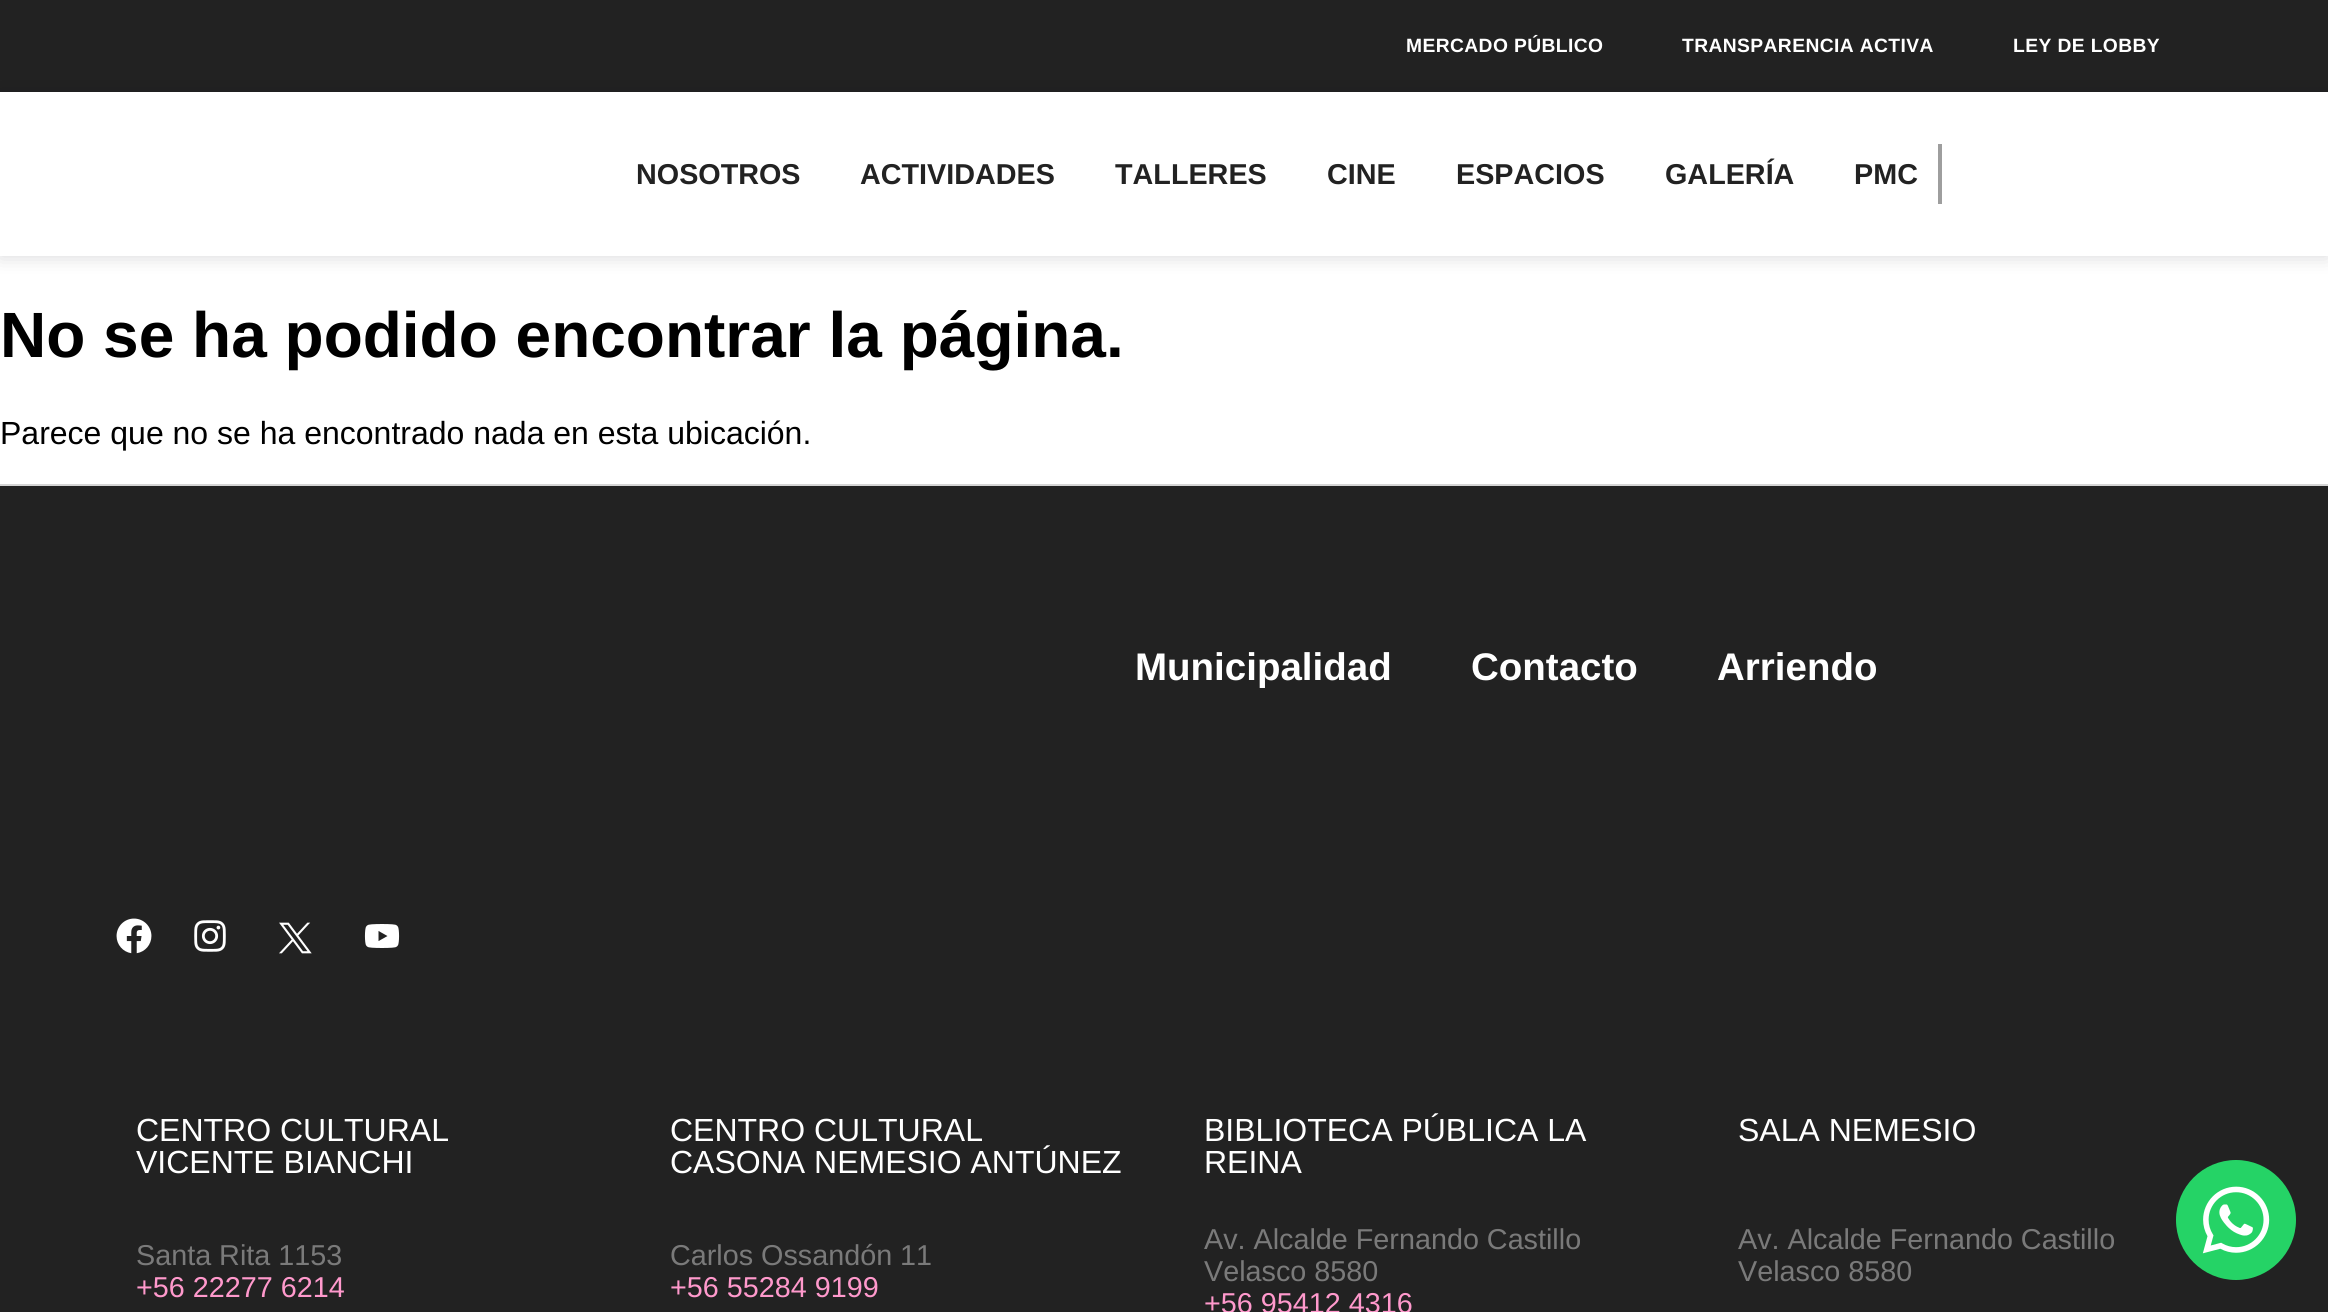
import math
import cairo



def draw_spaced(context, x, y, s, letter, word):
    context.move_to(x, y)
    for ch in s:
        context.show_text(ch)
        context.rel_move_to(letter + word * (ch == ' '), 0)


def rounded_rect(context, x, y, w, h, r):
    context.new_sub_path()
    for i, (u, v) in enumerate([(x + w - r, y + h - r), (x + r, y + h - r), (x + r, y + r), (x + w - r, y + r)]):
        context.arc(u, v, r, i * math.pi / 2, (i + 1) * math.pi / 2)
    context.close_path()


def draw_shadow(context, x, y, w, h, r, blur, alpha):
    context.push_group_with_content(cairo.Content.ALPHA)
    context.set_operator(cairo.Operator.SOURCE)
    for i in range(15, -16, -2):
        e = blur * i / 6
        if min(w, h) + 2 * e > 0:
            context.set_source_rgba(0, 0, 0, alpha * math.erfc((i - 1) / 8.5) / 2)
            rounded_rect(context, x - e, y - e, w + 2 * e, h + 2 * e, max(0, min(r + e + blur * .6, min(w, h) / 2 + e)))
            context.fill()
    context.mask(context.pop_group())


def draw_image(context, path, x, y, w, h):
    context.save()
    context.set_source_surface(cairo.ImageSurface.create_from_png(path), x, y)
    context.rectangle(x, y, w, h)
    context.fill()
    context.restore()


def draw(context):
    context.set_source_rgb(1, 1, 1)
    context.paint()
    context.set_source_rgb(34 / 255, 34 / 255, 34 / 255)
    context.rectangle(0, 0, 2328, 92)
    context.fill()
    context.save()
    context.set_fill_rule(cairo.FillRule.EVEN_ODD)
    context.new_path()
    context.move_to(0, 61)
    context.line_to(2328, 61)
    context.line_to(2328, 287)
    context.line_to(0, 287)
    context.close_path()
    context.move_to(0, 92)
    context.line_to(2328, 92)
    context.line_to(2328, 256)
    context.line_to(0, 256)
    context.close_path()
    context.clip()
    context.set_source_rgb(3 / 255, 2 / 255, 9 / 255)
    draw_shadow(context, 0, 92, 2328, 164, 0, 10, 0.16)
    context.restore()
    context.set_source_rgb(158 / 255, 158 / 255, 158 / 255)
    context.rectangle(1938, 144, 4, 60)
    context.fill()
    context.set_source_rgb(34 / 255, 34 / 255, 34 / 255)
    context.rectangle(0, 486, 2328, 826)
    context.fill()
    context.set_source_rgb(213 / 255, 213 / 255, 213 / 255)
    context.rectangle(0, 484, 2328, 2)
    context.fill()
    draw_image(context, "images/1.png", 116, 918, 36, 36)
    draw_image(context, "images/2.png", 194, 920, 32, 32)
    draw_image(context, "images/3.png", 279, 922, 33, 32)
    draw_image(context, "images/4.png", 364, 924, 36, 24)
    draw_image(context, "images/5.png", 2176, 1160, 120, 120)
    context.select_font_face("Liberation Sans", cairo.FontSlant.NORMAL, cairo.FontWeight.BOLD)
    context.set_font_size(19.25)
    context.set_source_rgb(1, 1, 1)
    draw_spaced(context, 1406, 52, "MERCADO PÚBLICO", 0.4, 0)
    draw_spaced(context, 1682, 52, "TRANSPARENCIA ACTIVA", 0.4, 0)
    draw_spaced(context, 2013, 52, "LEY DE LOBBY", 0.4, 0)
    context.set_font_size(28.75)
    context.set_source_rgb(34 / 255, 34 / 255, 34 / 255)
    context.move_to(636, 184)
    context.show_text("NOSOTROS")
    context.move_to(860, 184)
    context.show_text("ACTIVIDADES")
    context.move_to(1115, 184)
    context.show_text("TALLERES")
    context.move_to(1327, 184)
    context.show_text("CINE")
    context.move_to(1456, 184)
    context.show_text("ESPACIOS")
    context.move_to(1665, 184)
    context.show_text("GALERÍA")
    context.move_to(1854, 184)
    context.show_text("PMC")
    context.set_font_size(64)
    context.set_source_rgb(0, 0, 0)
    context.move_to(0, 357)
    context.show_text("No se ha podido encontrar la página.")
    context.select_font_face("Liberation Sans")
    context.set_font_size(32)
    context.move_to(0, 444)
    context.show_text("Parece que no se ha encontrado nada en esta ubicación.")
    context.select_font_face("Liberation Sans", cairo.FontSlant.NORMAL, cairo.FontWeight.BOLD)
    context.set_font_size(38.5)
    context.set_source_rgb(1, 1, 1)
    context.move_to(1135, 680)
    context.show_text("Municipalidad")
    context.move_to(1471, 680)
    context.show_text("Contacto")
    context.move_to(1717, 680)
    context.show_text("Arriendo")
    context.select_font_face("Liberation Sans")
    context.set_font_size(32)
    context.move_to(136, 1141)
    context.show_text("CENTRO CULTURAL")
    context.move_to(136, 1173)
    context.show_text("VICENTE BIANCHI")
    context.set_font_size(28.75)
    context.set_source_rgb(122 / 255, 122 / 255, 122 / 255)
    context.move_to(136, 1265)
    context.show_text("Santa Rita 1153")
    context.set_source_rgb(1, 153 / 255, 204 / 255)
    context.move_to(136, 1297)
    context.show_text("+56 22277 6214")
    context.set_font_size(32)
    context.set_source_rgb(1, 1, 1)
    context.move_to(670, 1141)
    context.show_text("CENTRO CULTURAL")
    context.move_to(670, 1173)
    context.show_text("CASONA NEMESIO ANTÚNEZ")
    context.set_font_size(28.75)
    context.set_source_rgb(122 / 255, 122 / 255, 122 / 255)
    context.move_to(670, 1265)
    context.show_text("Carlos Ossandón 11")
    context.set_source_rgb(1, 153 / 255, 204 / 255)
    context.move_to(670, 1297)
    context.show_text("+56 55284 9199")
    context.set_font_size(32)
    context.set_source_rgb(1, 1, 1)
    context.move_to(1204, 1141)
    context.show_text("BIBLIOTECA PÚBLICA LA")
    context.move_to(1204, 1173)
    context.show_text("REINA")
    context.set_font_size(28.75)
    context.set_source_rgb(122 / 255, 122 / 255, 122 / 255)
    context.move_to(1204, 1249)
    context.show_text("Av. Alcalde Fernando Castillo")
    context.move_to(1204, 1281)
    context.show_text("Velasco 8580")
    context.set_source_rgb(1, 153 / 255, 204 / 255)
    context.move_to(1204, 1313)
    context.show_text("+56 95412 4316")
    context.set_font_size(32)
    context.set_source_rgb(1, 1, 1)
    context.move_to(1738, 1141)
    context.show_text("SALA NEMESIO")
    context.set_font_size(28.75)
    context.set_source_rgb(122 / 255, 122 / 255, 122 / 255)
    context.move_to(1738, 1249)
    context.show_text("Av. Alcalde Fernando Castillo")
    context.move_to(1738, 1281)
    context.show_text("Velasco 8580")


surface = cairo.ImageSurface(cairo.Format.RGB24, 2328, 1312)
context = cairo.Context(surface)
options = cairo.FontOptions()
options.set_hint_metrics(cairo.HintMetrics.OFF)
options.set_hint_style(cairo.HintStyle.NONE)
context.set_font_options(options)
context.set_miter_limit(4)
draw(context)
surface.write_to_png("out.png")
